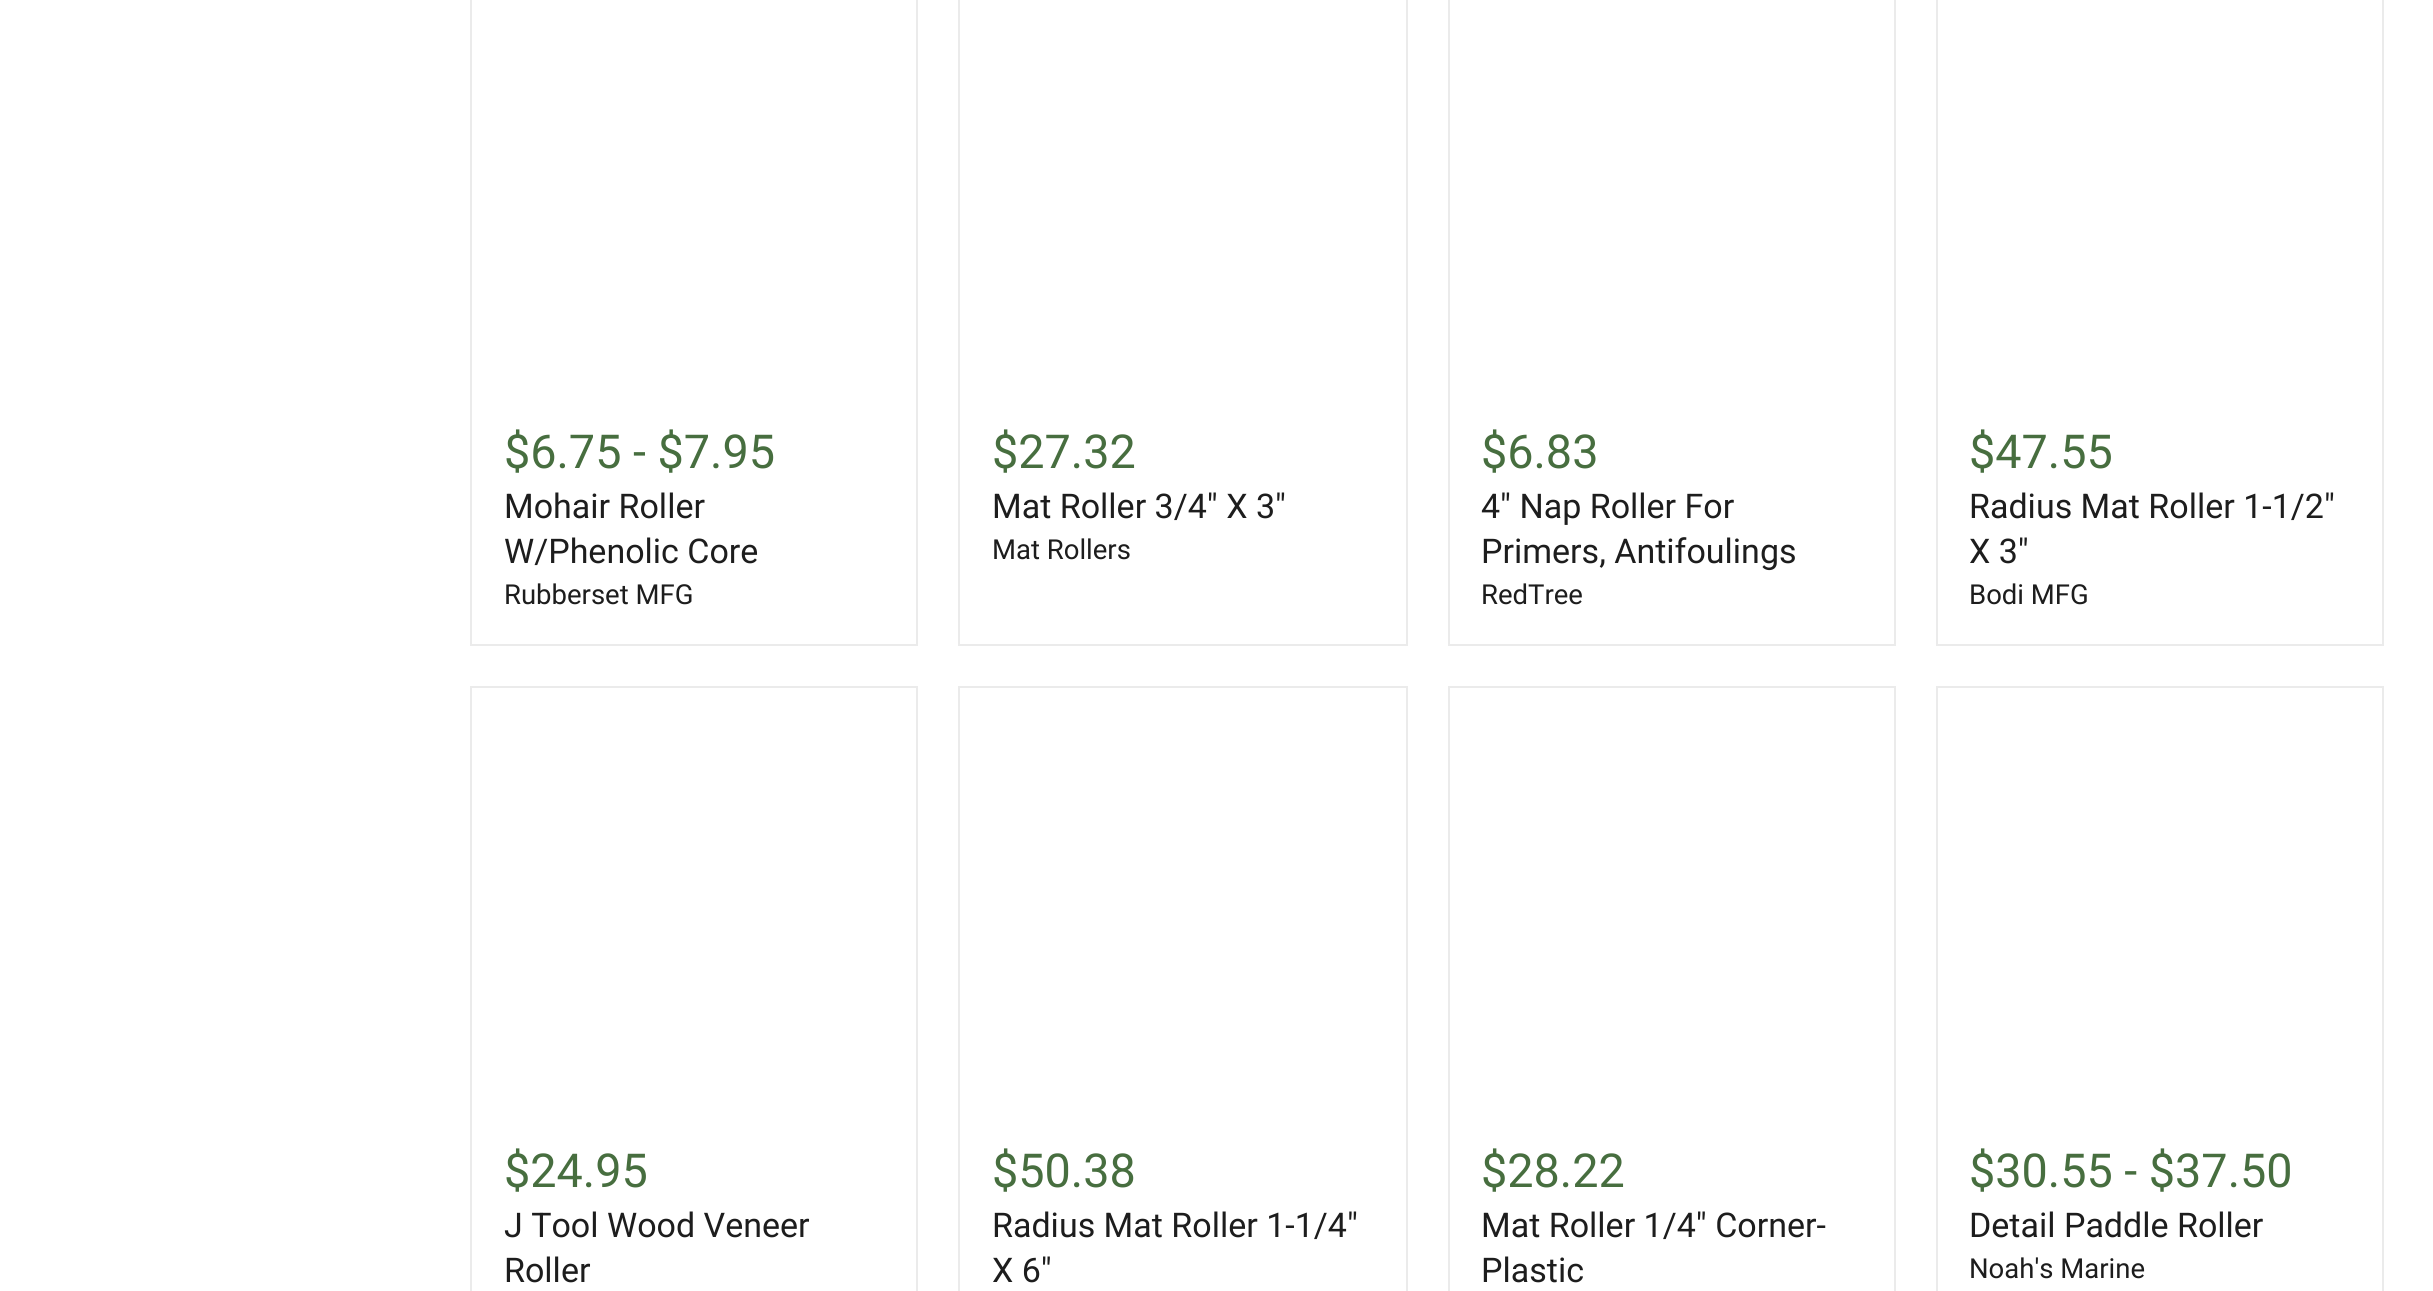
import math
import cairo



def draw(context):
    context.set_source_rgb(1, 1, 1)
    context.paint()
    context.rectangle(471, -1, 446, 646)
    context.set_source_rgb(235 / 255, 235 / 255, 235 / 255)
    context.stroke()
    context.rectangle(959, -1, 448, 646)
    context.stroke()
    context.rectangle(1449, -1, 446, 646)
    context.stroke()
    context.rectangle(1937, -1, 446, 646)
    context.stroke()
    context.rectangle(471, 687, 446, 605)
    context.stroke()
    context.rectangle(959, 687, 448, 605)
    context.stroke()
    context.rectangle(1449, 687, 446, 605)
    context.stroke()
    context.rectangle(1937, 687, 446, 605)
    context.stroke()
    context.select_font_face("Roboto")
    context.set_font_size(46.75)
    context.set_source_rgb(71 / 255, 110 / 255, 63 / 255)
    context.move_to(504, 468)
    context.show_text("$6.75 - $7.95")
    context.set_font_size(34)
    context.set_source_rgb(29 / 255, 29 / 255, 29 / 255)
    context.move_to(504, 518)
    context.show_text("Mohair Roller")
    context.move_to(504, 563)
    context.show_text("W/Phenolic Core")
    context.set_font_size(27.5)
    context.move_to(504, 604)
    context.show_text("Rubberset MFG")
    context.set_font_size(46.75)
    context.set_source_rgb(71 / 255, 110 / 255, 63 / 255)
    context.move_to(992, 468)
    context.show_text("$27.32")
    context.set_font_size(34)
    context.set_source_rgb(29 / 255, 29 / 255, 29 / 255)
    context.move_to(992, 518)
    context.show_text("Mat Roller 3/4\" X 3\"")
    context.set_font_size(27.5)
    context.move_to(992, 559)
    context.show_text("Mat Rollers")
    context.set_font_size(46.75)
    context.set_source_rgb(71 / 255, 110 / 255, 63 / 255)
    context.move_to(1481, 468)
    context.show_text("$6.83")
    context.set_font_size(34)
    context.set_source_rgb(29 / 255, 29 / 255, 29 / 255)
    context.move_to(1481, 518)
    context.show_text("4\" Nap Roller For")
    context.move_to(1481, 563)
    context.show_text("Primers, Antifoulings")
    context.set_font_size(27.5)
    context.move_to(1481, 604)
    context.show_text("RedTree")
    context.set_font_size(46.75)
    context.set_source_rgb(71 / 255, 110 / 255, 63 / 255)
    context.move_to(1969, 468)
    context.show_text("$47.55")
    context.set_font_size(34)
    context.set_source_rgb(29 / 255, 29 / 255, 29 / 255)
    context.move_to(1969, 518)
    context.show_text("Radius Mat Roller 1-1/2\"")
    context.move_to(1969, 563)
    context.show_text("X 3\"")
    context.set_font_size(27.5)
    context.move_to(1969, 604)
    context.show_text("Bodi MFG")
    context.set_font_size(46.75)
    context.set_source_rgb(71 / 255, 110 / 255, 63 / 255)
    context.move_to(504, 1187)
    context.show_text("$24.95")
    context.set_font_size(34)
    context.set_source_rgb(29 / 255, 29 / 255, 29 / 255)
    context.move_to(504, 1237)
    context.show_text("J Tool Wood Veneer")
    context.move_to(504, 1282)
    context.show_text("Roller")
    context.set_font_size(46.75)
    context.set_source_rgb(71 / 255, 110 / 255, 63 / 255)
    context.move_to(992, 1187)
    context.show_text("$50.38")
    context.set_font_size(34)
    context.set_source_rgb(29 / 255, 29 / 255, 29 / 255)
    context.move_to(992, 1237)
    context.show_text("Radius Mat Roller 1-1/4\"")
    context.move_to(992, 1282)
    context.show_text("X 6\"")
    context.set_font_size(46.75)
    context.set_source_rgb(71 / 255, 110 / 255, 63 / 255)
    context.move_to(1481, 1187)
    context.show_text("$28.22")
    context.set_font_size(34)
    context.set_source_rgb(29 / 255, 29 / 255, 29 / 255)
    context.move_to(1481, 1237)
    context.show_text("Mat Roller 1/4\" Corner-")
    context.move_to(1481, 1282)
    context.show_text("Plastic")
    context.set_font_size(46.75)
    context.set_source_rgb(71 / 255, 110 / 255, 63 / 255)
    context.move_to(1969, 1187)
    context.show_text("$30.55 - $37.50")
    context.set_font_size(34)
    context.set_source_rgb(29 / 255, 29 / 255, 29 / 255)
    context.move_to(1969, 1237)
    context.show_text("Detail Paddle Roller")
    context.set_font_size(27.5)
    context.move_to(1969, 1278)
    context.show_text("Noah's Marine")


surface = cairo.ImageSurface(cairo.Format.RGB24, 2433, 1291)
context = cairo.Context(surface)
options = cairo.FontOptions()
options.set_hint_metrics(cairo.HintMetrics.OFF)
options.set_hint_style(cairo.HintStyle.NONE)
context.set_font_options(options)
context.set_miter_limit(4)
draw(context)
surface.write_to_png("out.png")
